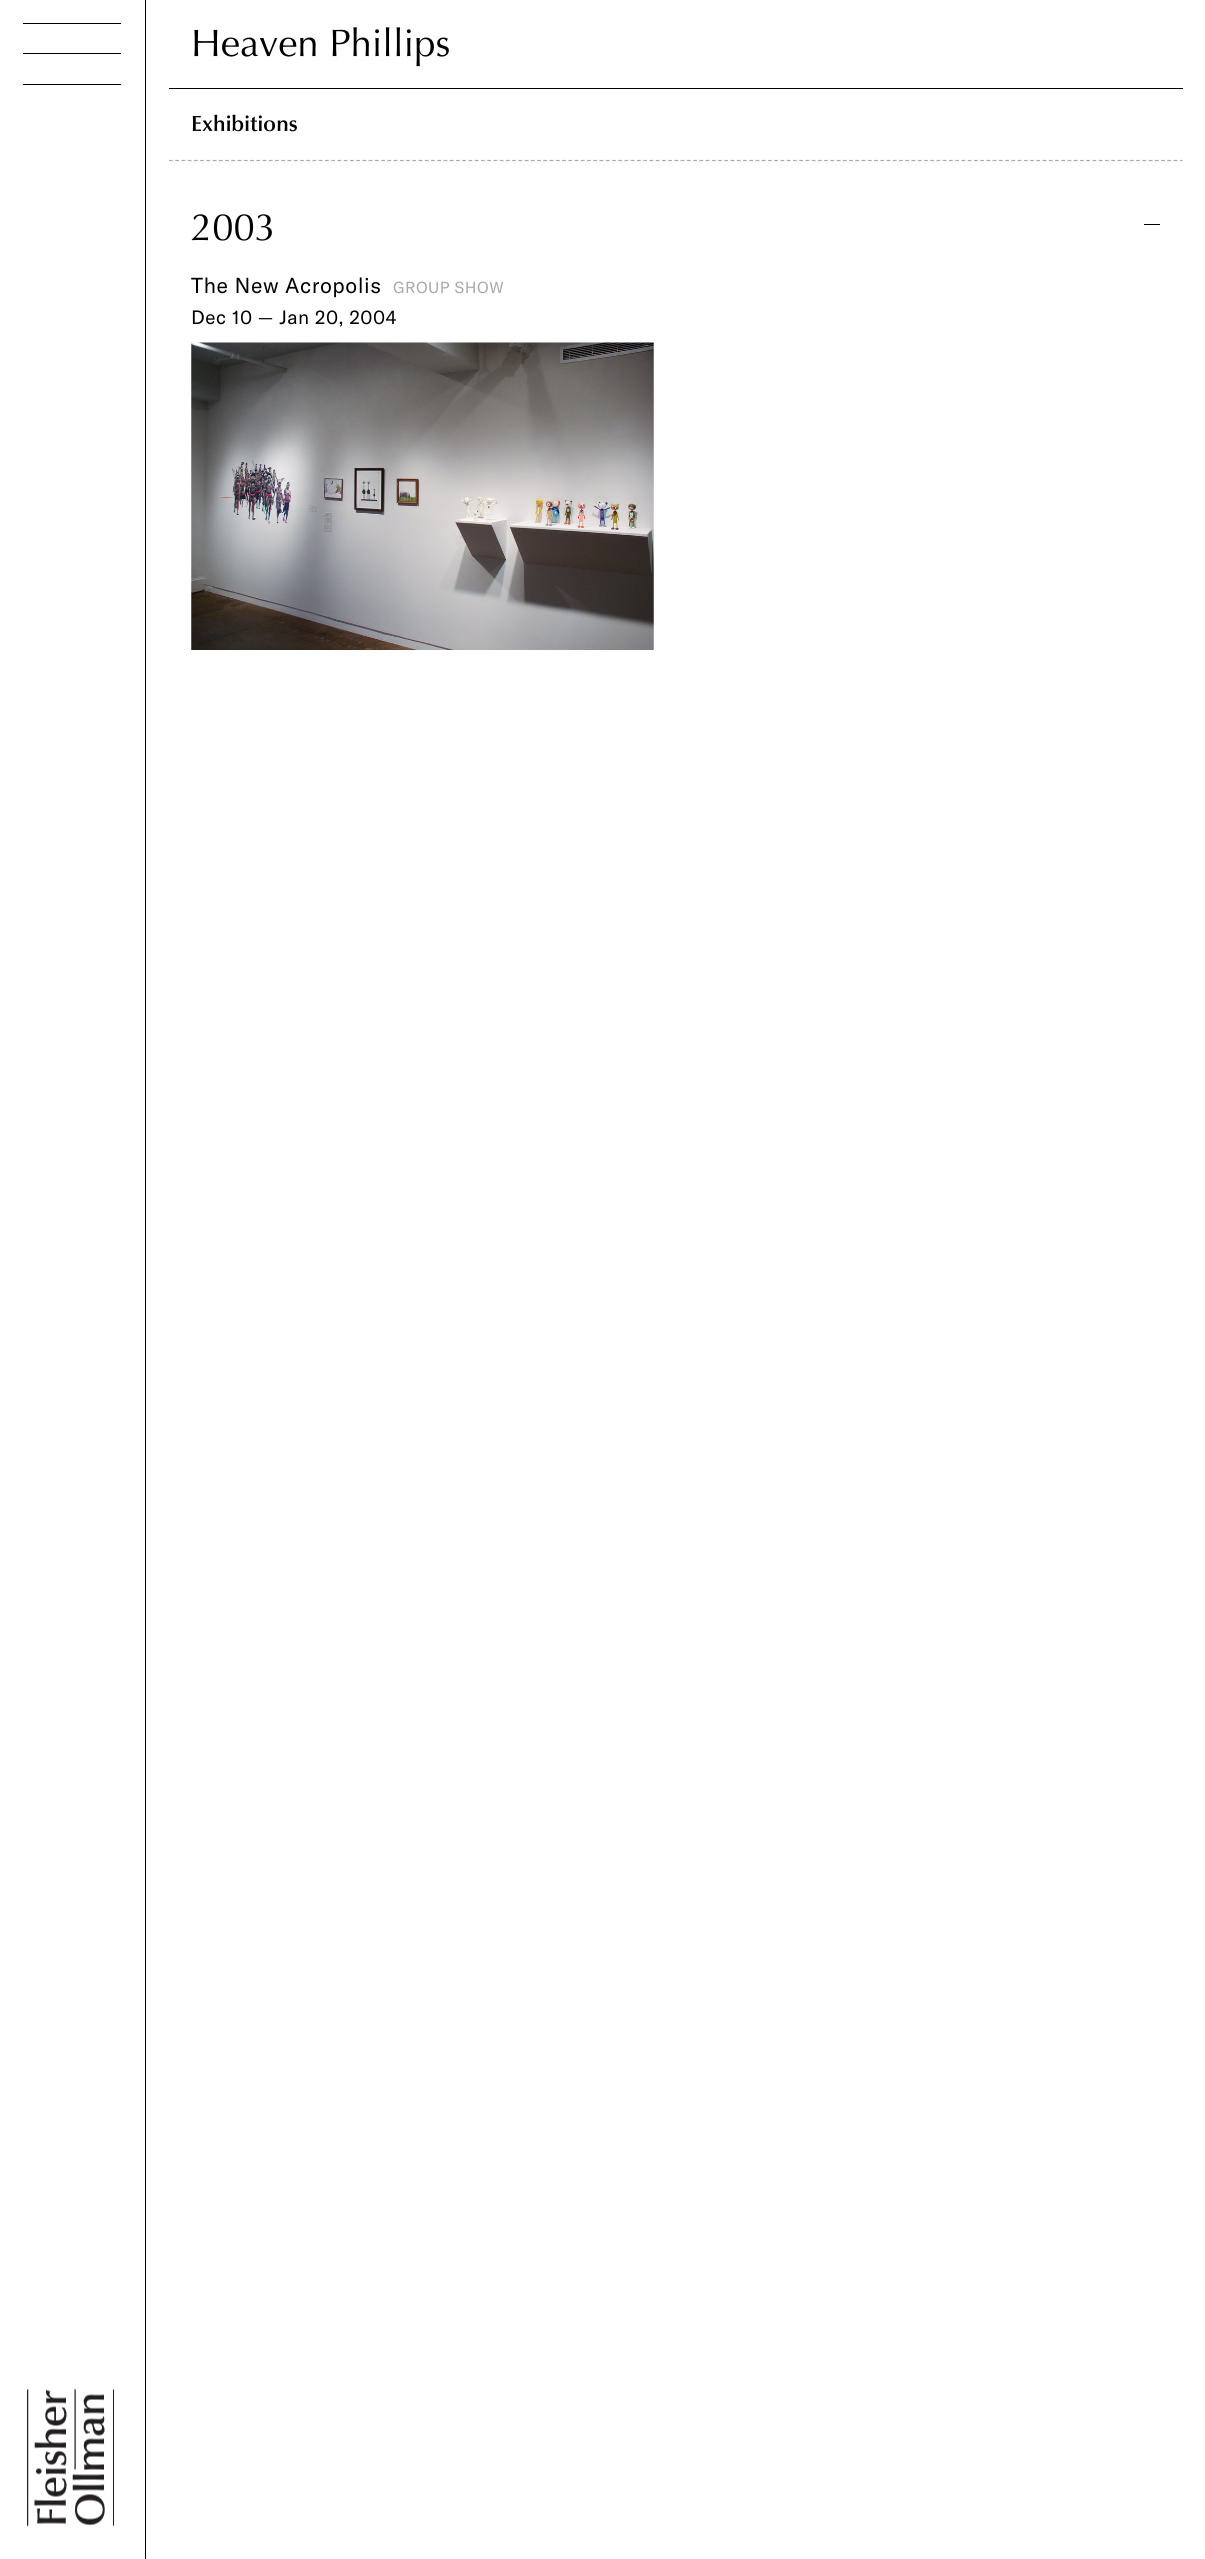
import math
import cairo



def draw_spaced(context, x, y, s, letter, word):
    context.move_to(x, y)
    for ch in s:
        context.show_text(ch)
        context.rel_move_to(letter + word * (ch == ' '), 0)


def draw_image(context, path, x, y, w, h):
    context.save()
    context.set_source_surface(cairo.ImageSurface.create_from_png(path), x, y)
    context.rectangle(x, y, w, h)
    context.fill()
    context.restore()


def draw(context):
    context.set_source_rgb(1, 1, 1)
    context.paint()
    context.set_source_rgb(0, 0, 0)
    context.rectangle(23, 84, 98, 1)
    context.fill()
    context.rectangle(23, 23, 98, 1)
    context.fill()
    context.rectangle(23, 53, 98, 1)
    context.fill()
    context.rectangle(145, 0, 1, 2559)
    context.fill()
    context.rectangle(169, 88, 1014, 1)
    context.fill()
    context.new_path()
    context.move_to(169, 160.5)
    context.line_to(1182.5, 160.5)
    context.set_source_rgb(170 / 255, 170 / 255, 170 / 255)
    context.set_line_width(1.2)
    context.set_dash([3.75, 2.49])
    context.stroke()
    context.set_source_rgb(0, 0, 0)
    context.rectangle(1144, 224, 16, 1)
    context.fill()
    draw_image(context, "images/1.png", 191, 342, 463, 308)
    draw_image(context, "images/2.png", 27, 2388, 88, 139)
    context.select_font_face("Optima")
    context.set_font_size(38.25)
    context.move_to(191, 56)
    context.show_text("Heaven Phillips")
    context.select_font_face("Optima SemiBold")
    context.set_font_size(22)
    context.move_to(191, 131)
    context.show_text("Exhibitions")
    context.select_font_face("Optima")
    context.set_font_size(38.25)
    context.move_to(191, 240)
    context.show_text("2003")
    context.select_font_face("GT America")
    context.set_font_size(21.4)
    draw_spaced(context, 191, 293, "The New Acropolis", 0.5, 0)
    context.set_font_size(15.75)
    context.set_source_rgb(170 / 255, 170 / 255, 170 / 255)
    draw_spaced(context, 393, 293, "GROUP SHOW", 0.5, 0)
    context.set_font_size(19.1)
    context.set_source_rgb(0, 0, 0)
    draw_spaced(context, 191, 324, "Dec 10 — Jan 20, 2004", 0.5, 0)


surface = cairo.ImageSurface(cairo.Format.RGB24, 1205, 2559)
context = cairo.Context(surface)
options = cairo.FontOptions()
options.set_hint_metrics(cairo.HintMetrics.OFF)
options.set_hint_style(cairo.HintStyle.NONE)
context.set_font_options(options)
context.set_miter_limit(4)
draw(context)
surface.write_to_png("out.png")
